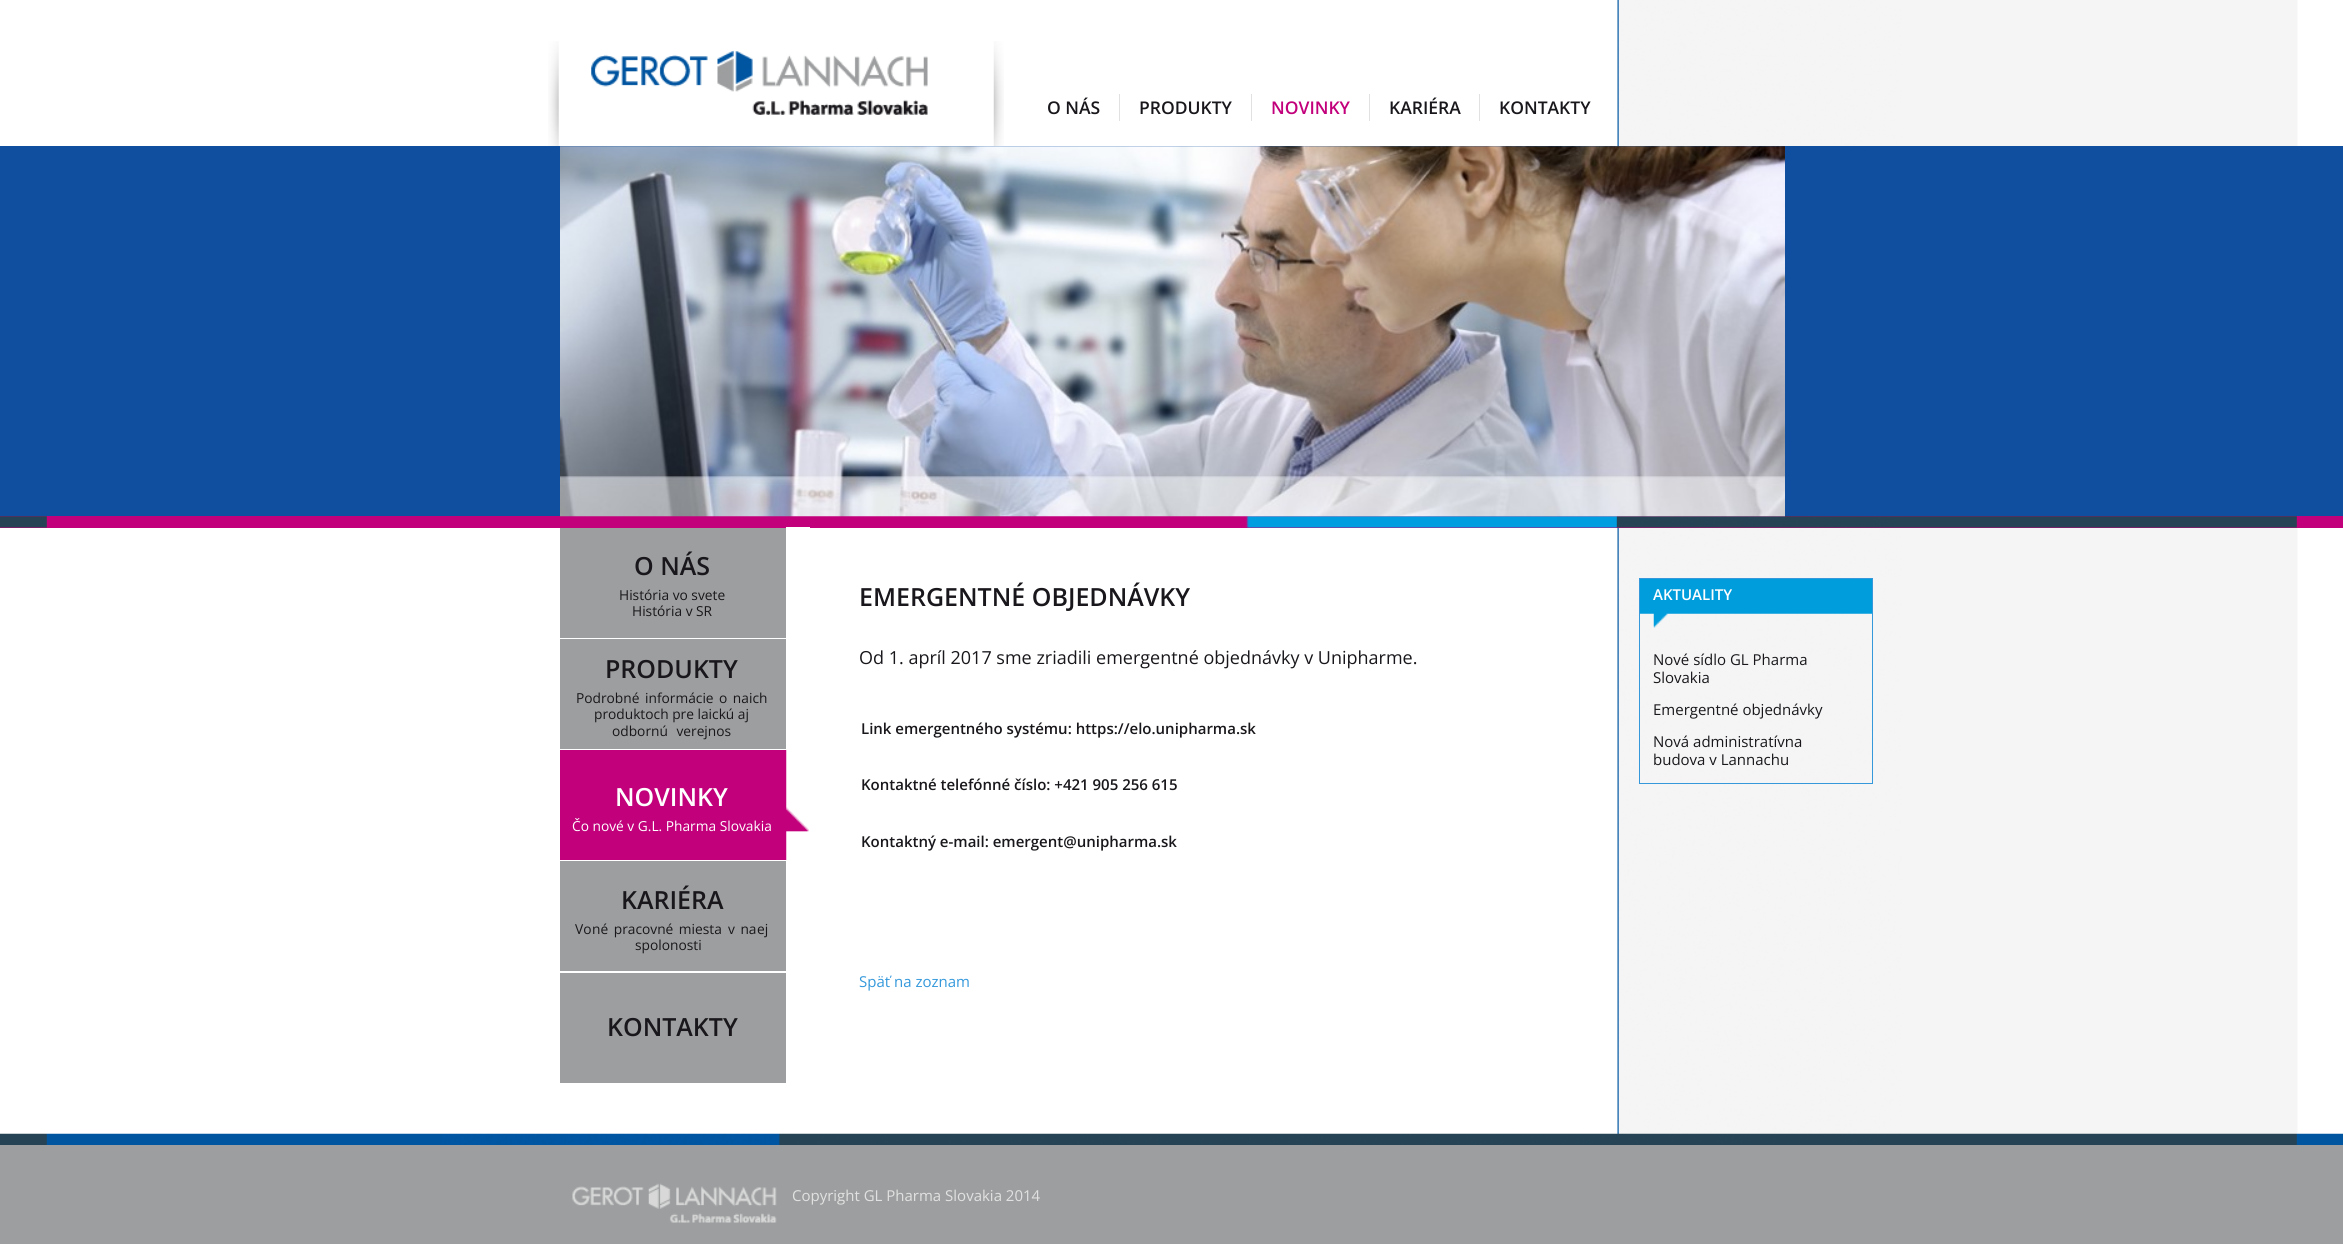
import math
import cairo



def draw_spaced(context, x, y, s, letter, word):
    context.move_to(x, y)
    for ch in s:
        context.show_text(ch)
        context.rel_move_to(letter + word * (ch == ' '), 0)


def draw_image(context, path, x, y, w, h):
    context.save()
    context.set_source_surface(cairo.ImageSurface.create_from_png(path), x, y)
    context.rectangle(x, y, w, h)
    context.fill()
    context.restore()


def draw(context):
    context.set_source_rgb(1, 1, 1)
    context.paint()
    draw_image(context, "images/1.png", 1617, 0, 681, 1134)
    draw_image(context, "images/2.png", 548, 41, 456, 105)
    draw_image(context, "images/3.png", 591, 50, 337, 65)
    context.set_source_rgb(225 / 255, 225 / 255, 225 / 255)
    context.rectangle(1119, 94, 1, 27)
    context.fill()
    context.rectangle(1251, 94, 1, 27)
    context.fill()
    context.rectangle(1369, 94, 1, 27)
    context.fill()
    context.rectangle(1479, 94, 1, 27)
    context.fill()
    context.set_source_rgb(16 / 255, 79 / 255, 160 / 255)
    context.rectangle(0, 146, 2343, 370)
    context.fill()
    context.set_source_rgb(194 / 255, 0, 123 / 255)
    context.rectangle(0, 516, 2343, 12)
    context.fill()
    draw_image(context, "images/5.png", 0, 516, 2297, 12)
    draw_image(context, "images/4.png", 560, 146, 1225, 371)
    context.set_source_rgb(157 / 255, 158 / 255, 159 / 255)
    context.rectangle(560, 528, 226, 110)
    context.fill()
    context.set_source_rgb(1, 1, 1)
    context.rectangle(786, 527, 24, 1)
    context.fill()
    context.set_source_rgb(157 / 255, 158 / 255, 159 / 255)
    context.rectangle(560, 639, 226, 110)
    context.fill()
    context.set_source_rgb(194 / 255, 0, 123 / 255)
    context.rectangle(560, 750, 249, 110)
    context.fill()
    draw_image(context, "images/6.png", 786, 750, 24, 110)
    context.set_source_rgb(157 / 255, 158 / 255, 159 / 255)
    context.rectangle(560, 861, 226, 110)
    context.fill()
    context.rectangle(560, 973, 226, 110)
    context.fill()
    draw_image(context, "images/7.png", 1640, 579, 232, 49)
    context.rectangle(1639.5, 578.5, 233, 205)
    context.set_source_rgb(52 / 255, 152 / 255, 219 / 255)
    context.set_line_width(1)
    context.stroke()
    context.set_source_rgb(157 / 255, 158 / 255, 159 / 255)
    context.rectangle(0, 1145, 2343, 99)
    context.fill()
    draw_image(context, "images/8.png", 0, 1133, 2343, 12)
    draw_image(context, "images/9.png", 572, 1183, 205, 40)
    context.select_font_face("Open Sans SemiBold")
    context.set_font_size(17.5)
    context.set_source_rgb(25 / 255, 23 / 255, 27 / 255)
    context.move_to(1047, 114)
    context.show_text("O NÁS")
    context.move_to(1139, 114)
    context.show_text("PRODUKTY")
    context.set_source_rgb(194 / 255, 0, 123 / 255)
    context.move_to(1271, 114)
    context.show_text("NOVINKY")
    context.set_source_rgb(25 / 255, 23 / 255, 27 / 255)
    context.move_to(1389, 114)
    context.show_text("KARIÉRA")
    context.move_to(1499, 114)
    context.show_text("KONTAKTY")
    context.set_font_size(25)
    context.move_to(634, 575)
    context.show_text("O NÁS")
    context.select_font_face("Open Sans")
    context.set_font_size(13.75)
    context.move_to(619, 600)
    context.show_text("História vo svete")
    context.move_to(632, 616)
    context.show_text("História v SR")
    context.select_font_face("Open Sans SemiBold")
    context.set_font_size(25)
    context.move_to(605, 678)
    context.show_text("PRODUKTY")
    context.select_font_face("Open Sans")
    context.set_font_size(13.75)
    draw_spaced(context, 576, 703, "Podrobné informácie", 0, 2)
    draw_spaced(context, 719, 703, "o na", 0, 2)
    context.move_to(749, 703)
    context.show_text("ich")
    context.move_to(594, 719)
    context.show_text("produktoch pre laickú aj")
    draw_spaced(context, 612, 736, "odbornú verejnos", 0, 5)
    context.select_font_face("Open Sans SemiBold")
    context.set_font_size(25)
    context.set_source_rgb(1, 1, 1)
    context.move_to(615, 806)
    context.show_text("NOVINKY")
    context.select_font_face("Open Sans")
    context.set_font_size(13.75)
    context.move_to(572, 831)
    context.show_text("Čo nové v G.L. Pharma Slovakia")
    context.select_font_face("Open Sans SemiBold")
    context.set_font_size(25)
    context.set_source_rgb(25 / 255, 23 / 255, 27 / 255)
    context.move_to(621, 909)
    context.show_text("KARIÉRA")
    context.select_font_face("Open Sans")
    context.set_font_size(13.75)
    context.move_to(575, 934)
    context.show_text("Vo")
    draw_spaced(context, 592, 934, "né pracovné miesta", 0, 2)
    draw_spaced(context, 728, 934, "v na", 0, 2)
    context.move_to(757, 934)
    context.show_text("ej")
    context.move_to(635, 950)
    context.show_text("spolonosti")
    context.select_font_face("Open Sans SemiBold")
    context.set_font_size(25)
    context.move_to(607, 1036)
    context.show_text("KONTAKTY")
    context.move_to(859, 606)
    context.show_text("EMERGENTNÉ OBJEDNÁVKY")
    context.select_font_face("Open Sans")
    context.set_font_size(18)
    context.move_to(859, 664)
    context.show_text("Od 1. apríl 2017 sme zriadili emergentné objednávky v Unipharme.")
    context.select_font_face("Open Sans SemiBold")
    context.set_font_size(15)
    context.move_to(861, 734)
    context.show_text("Link emergentného systému: https://elo.unipharma.sk")
    context.move_to(861, 790)
    context.show_text("Kontaktné telefónné číslo: +421 905 256 615")
    context.move_to(861, 847)
    context.show_text("Kontaktný e-mail: emergent@unipharma.sk")
    context.select_font_face("Open Sans")
    context.set_source_rgb(52 / 255, 152 / 255, 219 / 255)
    context.move_to(859, 987)
    context.show_text("Späť na zoznam")
    context.select_font_face("Open Sans SemiBold")
    context.set_source_rgb(1, 1, 1)
    context.move_to(1653, 600)
    context.show_text("AKTUALITY")
    context.select_font_face("Open Sans")
    context.set_source_rgb(25 / 255, 23 / 255, 27 / 255)
    context.move_to(1653, 665)
    context.show_text("Nové sídlo GL Pharma")
    context.move_to(1653, 683)
    context.show_text("Slovakia")
    context.move_to(1653, 715)
    context.show_text("Emergentné objednávky")
    context.move_to(1653, 747)
    context.show_text("Nová administratívna")
    context.move_to(1653, 765)
    context.show_text("budova v Lannachu")
    context.set_source_rgb(225 / 255, 225 / 255, 225 / 255)
    context.move_to(792, 1201)
    context.show_text("Copyright GL Pharma Slovakia 2014")


surface = cairo.ImageSurface(cairo.Format.RGB24, 2343, 1244)
context = cairo.Context(surface)
options = cairo.FontOptions()
options.set_hint_metrics(cairo.HintMetrics.OFF)
options.set_hint_style(cairo.HintStyle.NONE)
context.set_font_options(options)
context.set_miter_limit(4)
draw(context)
surface.write_to_png("out.png")
